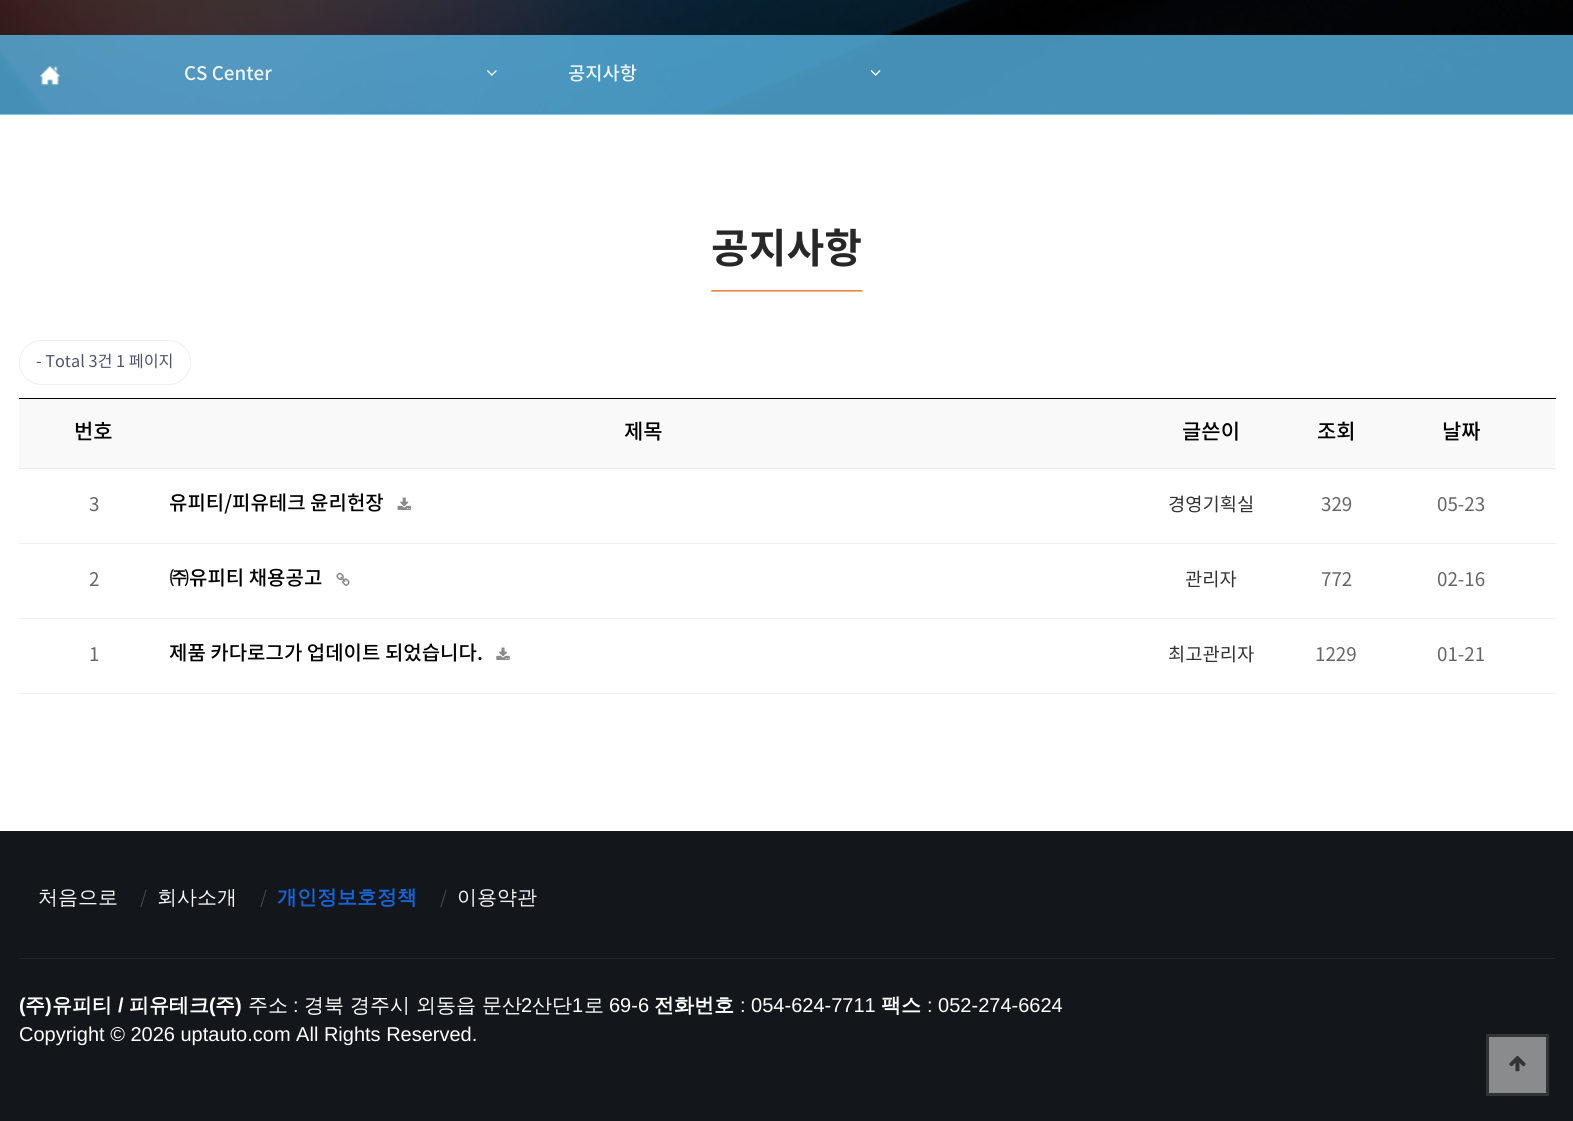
import math
import cairo



def rounded_rect(context, x, y, w, h, r):
    context.new_sub_path()
    for i, (u, v) in enumerate([(x + w - r, y + h - r), (x + r, y + h - r), (x + r, y + r), (x + w - r, y + r)]):
        context.arc(u, v, r, i * math.pi / 2, (i + 1) * math.pi / 2)
    context.close_path()


def draw_image(context, path, x, y, w, h):
    context.save()
    context.set_source_surface(cairo.ImageSurface.create_from_png(path), x, y)
    context.rectangle(x, y, w, h)
    context.fill()
    context.restore()


def draw(context):
    context.set_source_rgb(1, 1, 1)
    context.paint()
    draw_image(context, "images/1.png", 0, 0, 1573, 114)
    context.set_source_rgba(90 / 255, 185 / 255, 234 / 255, 0.77)
    context.rectangle(0, 35, 1573, 80)
    context.fill()
    draw_image(context, "images/2.png", 40, 66, 20, 20)
    draw_image(context, "images/3.png", 487, 70, 10, 6)
    draw_image(context, "images/4.png", 870, 70, 11, 6)
    draw_image(context, "images/5.png", 711, 290, 152, 2)
    rounded_rect(context, 19.5, 340.5, 171, 44, 22)
    context.set_source_rgb(238 / 255, 238 / 255, 238 / 255)
    context.set_line_width(1)
    context.stroke()
    context.set_source_rgb(249 / 255, 249 / 255, 249 / 255)
    context.rectangle(19, 399, 1536, 69)
    context.fill()
    context.set_source_rgb(0, 0, 0)
    context.rectangle(19, 398, 1537, 1)
    context.fill()
    context.set_source_rgb(236 / 255, 236 / 255, 236 / 255)
    context.rectangle(19, 468, 1537, 1)
    context.fill()
    draw_image(context, "images/6.png", 397, 497, 15, 13)
    draw_image(context, "images/7.png", 336, 572, 14, 14)
    context.set_source_rgb(236 / 255, 240 / 255, 241 / 255)
    context.rectangle(19, 543, 1537, 1)
    context.fill()
    draw_image(context, "images/8.png", 496, 647, 14, 13)
    context.rectangle(19, 618, 1537, 1)
    context.fill()
    context.rectangle(19, 693, 1537, 1)
    context.fill()
    context.set_source_rgb(19 / 255, 22 / 255, 27 / 255)
    context.rectangle(0, 831, 1573, 290)
    context.fill()
    context.set_source_rgb(31 / 255, 34 / 255, 38 / 255)
    context.rectangle(19, 958, 1536, 1)
    context.fill()
    context.set_source_rgb(137 / 255, 139 / 255, 141 / 255)
    context.rectangle(1487.5, 1035.5, 60, 59)
    context.fill_preserve()
    context.set_source_rgb(51 / 255, 51 / 255, 51 / 255)
    context.set_line_width(3)
    context.stroke()
    draw_image(context, "images/9.png", 1509, 1056, 17, 16)
    context.select_font_face("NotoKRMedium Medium")
    context.set_font_size(18.75)
    context.set_source_rgb(238 / 255, 245 / 255, 249 / 255)
    context.move_to(184, 80)
    context.show_text("CS Center")
    context.move_to(568, 80)
    context.show_text("공지사항")
    context.select_font_face("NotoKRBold", cairo.FontSlant.NORMAL, cairo.FontWeight.BOLD)
    context.set_font_size(41)
    context.set_source_rgb(39 / 255, 39 / 255, 39 / 255)
    context.move_to(711, 263)
    context.show_text("공지사항")
    context.select_font_face("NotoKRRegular")
    context.set_font_size(16.25)
    context.set_source_rgb(78 / 255, 84 / 255, 111 / 255)
    context.move_to(36, 367)
    context.show_text("- Total 3건 1 페이지")
    context.select_font_face("NotoKRMedium Medium")
    context.set_font_size(21)
    context.set_source_rgb(0, 0, 0)
    context.move_to(74, 439)
    context.show_text("번호")
    context.move_to(624, 439)
    context.show_text("제목")
    context.move_to(1182, 439)
    context.show_text("글쓴이")
    context.move_to(1317, 439)
    context.show_text("조회")
    context.move_to(1442, 439)
    context.show_text("날짜")
    context.select_font_face("NotoKRRegular")
    context.set_font_size(18.75)
    context.set_source_rgb(102 / 255, 102 / 255, 102 / 255)
    context.move_to(89, 511)
    context.show_text("3")
    context.select_font_face("NotoKRMedium Medium")
    context.set_font_size(20)
    context.set_source_rgb(0, 0, 0)
    context.move_to(169, 510)
    context.show_text("유피티/피유테크 윤리헌장")
    context.select_font_face("NotoKRRegular")
    context.set_font_size(18.75)
    context.set_source_rgb(51 / 255, 51 / 255, 51 / 255)
    context.move_to(1168, 511)
    context.show_text("경영기획실")
    context.set_source_rgb(102 / 255, 102 / 255, 102 / 255)
    context.move_to(1321, 511)
    context.show_text("329")
    context.move_to(1437, 511)
    context.show_text("05-23")
    context.move_to(89, 586)
    context.show_text("2")
    context.select_font_face("Dotum", cairo.FontSlant.NORMAL, cairo.FontWeight.BOLD)
    context.set_font_size(20)
    context.set_source_rgb(0, 0, 0)
    context.move_to(169, 585)
    context.show_text("㈜")
    context.select_font_face("NotoKRMedium Medium")
    context.move_to(189, 585)
    context.show_text("유피티 채용공고")
    context.select_font_face("NotoKRRegular")
    context.set_font_size(18.75)
    context.set_source_rgb(51 / 255, 51 / 255, 51 / 255)
    context.move_to(1185, 586)
    context.show_text("관리자")
    context.set_source_rgb(102 / 255, 102 / 255, 102 / 255)
    context.move_to(1321, 586)
    context.show_text("772")
    context.move_to(1437, 586)
    context.show_text("02-16")
    context.move_to(89, 661)
    context.show_text("1")
    context.select_font_face("NotoKRMedium Medium")
    context.set_font_size(20)
    context.set_source_rgb(0, 0, 0)
    context.move_to(169, 660)
    context.show_text("제품 카다로그가 업데이트 되었습니다.")
    context.select_font_face("NotoKRRegular")
    context.set_font_size(18.75)
    context.set_source_rgb(51 / 255, 51 / 255, 51 / 255)
    context.move_to(1168, 661)
    context.show_text("최고관리자")
    context.set_source_rgb(102 / 255, 102 / 255, 102 / 255)
    context.move_to(1315, 661)
    context.show_text("1229")
    context.move_to(1437, 661)
    context.show_text("01-21")
    context.select_font_face("WenQuanYi Zen Hei Medium")
    context.set_font_size(20)
    context.set_source_rgb(248 / 255, 248 / 255, 249 / 255)
    context.move_to(38, 904)
    context.show_text("처음으로")
    context.select_font_face("NotoKRRegular")
    context.set_font_size(18)
    context.set_source_rgb(70 / 255, 70 / 255, 70 / 255)
    context.move_to(140, 904)
    context.show_text("/")
    context.select_font_face("WenQuanYi Zen Hei Medium")
    context.set_font_size(20)
    context.set_source_rgb(248 / 255, 248 / 255, 249 / 255)
    context.move_to(157, 904)
    context.show_text("회사소개")
    context.select_font_face("NotoKRRegular")
    context.set_font_size(18)
    context.set_source_rgb(70 / 255, 70 / 255, 70 / 255)
    context.move_to(260, 904)
    context.show_text("/")
    context.select_font_face("WenQuanYi Zen Hei", cairo.FontSlant.NORMAL, cairo.FontWeight.BOLD)
    context.set_font_size(20)
    context.set_source_rgb(24 / 255, 100 / 255, 213 / 255)
    context.move_to(277, 904)
    context.show_text("개인정보호정책")
    context.select_font_face("NotoKRRegular")
    context.set_font_size(18)
    context.set_source_rgb(70 / 255, 70 / 255, 70 / 255)
    context.move_to(440, 904)
    context.show_text("/")
    context.select_font_face("WenQuanYi Zen Hei Medium")
    context.set_font_size(20)
    context.set_source_rgb(248 / 255, 248 / 255, 249 / 255)
    context.move_to(457, 904)
    context.show_text("이용약관")
    context.select_font_face("Liberation Sans", cairo.FontSlant.NORMAL, cairo.FontWeight.BOLD)
    context.set_source_rgb(1, 1, 1)
    context.move_to(19, 1012)
    context.show_text("(")
    context.select_font_face("WenQuanYi Zen Hei", cairo.FontSlant.NORMAL, cairo.FontWeight.BOLD)
    context.move_to(25, 1012)
    context.show_text("주")
    context.select_font_face("Liberation Sans", cairo.FontSlant.NORMAL, cairo.FontWeight.BOLD)
    context.move_to(45, 1012)
    context.show_text(")")
    context.select_font_face("WenQuanYi Zen Hei", cairo.FontSlant.NORMAL, cairo.FontWeight.BOLD)
    context.move_to(52, 1012)
    context.show_text("유피티")
    context.select_font_face("Liberation Sans", cairo.FontSlant.NORMAL, cairo.FontWeight.BOLD)
    context.move_to(118, 1012)
    context.show_text("/")
    context.select_font_face("WenQuanYi Zen Hei", cairo.FontSlant.NORMAL, cairo.FontWeight.BOLD)
    context.move_to(129, 1012)
    context.show_text("피유테크")
    context.select_font_face("Liberation Sans", cairo.FontSlant.NORMAL, cairo.FontWeight.BOLD)
    context.move_to(209, 1012)
    context.show_text("(")
    context.select_font_face("WenQuanYi Zen Hei", cairo.FontSlant.NORMAL, cairo.FontWeight.BOLD)
    context.move_to(215, 1012)
    context.show_text("주")
    context.select_font_face("Liberation Sans", cairo.FontSlant.NORMAL, cairo.FontWeight.BOLD)
    context.move_to(235, 1012)
    context.show_text(")")
    context.select_font_face("WenQuanYi Zen Hei Medium")
    context.move_to(248, 1012)
    context.show_text("주소")
    context.select_font_face("Liberation Sans")
    context.move_to(293, 1012)
    context.show_text(":")
    context.select_font_face("WenQuanYi Zen Hei Medium")
    context.move_to(304, 1012)
    context.show_text("경북 경주시 외동읍 문산")
    context.select_font_face("Liberation Sans")
    context.move_to(521, 1012)
    context.show_text("2")
    context.select_font_face("WenQuanYi Zen Hei Medium")
    context.move_to(532, 1012)
    context.show_text("산단")
    context.select_font_face("Liberation Sans")
    context.move_to(572, 1012)
    context.show_text("1")
    context.select_font_face("WenQuanYi Zen Hei Medium")
    context.move_to(584, 1012)
    context.show_text("로")
    context.select_font_face("Liberation Sans")
    context.move_to(609, 1012)
    context.show_text("69-6")
    context.select_font_face("WenQuanYi Zen Hei", cairo.FontSlant.NORMAL, cairo.FontWeight.BOLD)
    context.move_to(654, 1012)
    context.show_text("전화번호")
    context.select_font_face("Liberation Sans")
    context.move_to(740, 1012)
    context.show_text(": 054-624-7711")
    context.select_font_face("WenQuanYi Zen Hei", cairo.FontSlant.NORMAL, cairo.FontWeight.BOLD)
    context.move_to(881, 1012)
    context.show_text("팩스")
    context.select_font_face("Liberation Sans")
    context.move_to(927, 1012)
    context.show_text(": 052-274-6624")
    context.move_to(19, 1041)
    context.show_text("Copyright © 2026 uptauto.com All Rights Reserved.")


surface = cairo.ImageSurface(cairo.Format.RGB24, 1573, 1121)
context = cairo.Context(surface)
options = cairo.FontOptions()
options.set_hint_metrics(cairo.HintMetrics.OFF)
options.set_hint_style(cairo.HintStyle.NONE)
context.set_font_options(options)
context.set_miter_limit(4)
draw(context)
surface.write_to_png("out.png")
